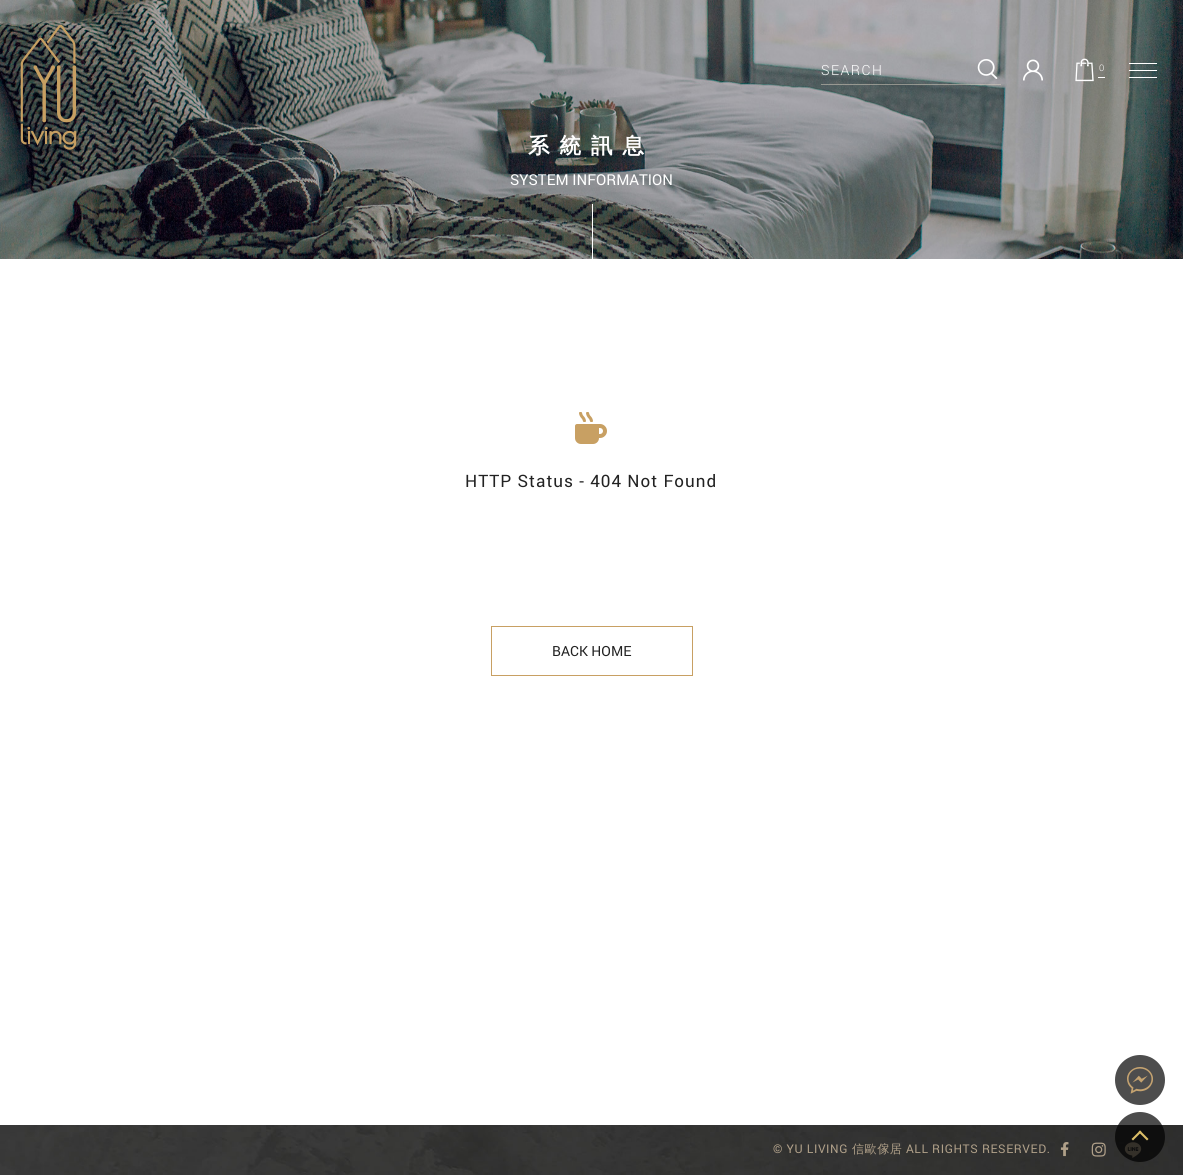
import math
import cairo



def draw_spaced(context, x, y, s, letter, word):
    context.move_to(x, y)
    for ch in s:
        context.show_text(ch)
        context.rel_move_to(letter + word * (ch == ' '), 0)


def draw_image(context, path, x, y, w, h):
    context.save()
    context.set_source_surface(cairo.ImageSurface.create_from_png(path), x, y)
    context.rectangle(x, y, w, h)
    context.fill()
    context.restore()


def draw(context):
    context.set_source_rgb(1, 1, 1)
    context.paint()
    draw_image(context, "images/5.png", 0, 0, 1183, 259)
    draw_image(context, "images/1.png", 20, 24, 57, 126)
    context.set_source_rgba(221 / 255, 210 / 255, 194 / 255, 0.5)
    context.rectangle(821, 84, 180, 1)
    context.fill()
    draw_image(context, "images/2.png", 977, 59, 21, 20)
    draw_image(context, "images/3.png", 1023, 59, 20, 22)
    draw_image(context, "images/4.png", 1075, 58, 19, 24)
    context.set_source_rgb(1, 1, 1)
    context.rectangle(1098, 77, 7, 1)
    context.fill()
    context.rectangle(1129, 63, 28, 1)
    context.fill()
    context.rectangle(1129, 70, 28, 1)
    context.fill()
    context.rectangle(1129, 77, 28, 1)
    context.fill()
    context.rectangle(592, 204, 1, 55)
    context.fill()
    draw_image(context, "images/6.png", 575, 412, 32, 32)
    context.rectangle(491.5, 626.5, 201, 49)
    context.set_source_rgb(200 / 255, 160 / 255, 99 / 255)
    context.set_line_width(1)
    context.stroke()
    context.set_source_rgb(77 / 255, 77 / 255, 77 / 255)
    context.arc(1140, 1080, 25, 0, 2 * math.pi)
    context.fill()
    draw_image(context, "images/7.png", 1127, 1067, 26, 27)
    draw_image(context, "images/8.png", 0, 1125, 1183, 50)
    draw_image(context, "images/9.png", 1060, 1142, 9, 15)
    draw_image(context, "images/10.png", 1091, 1142, 15, 15)
    draw_image(context, "images/11.png", 1124, 1142, 18, 16)
    context.set_source_rgba(0, 0, 0, 0.7)
    context.arc(1140, 1137, 25, 0, 2 * math.pi)
    context.fill()
    context.set_source_rgb(219 / 255, 189 / 255, 103 / 255)
    context.new_path()
    context.move_to(1131.5, 1139)
    context.line_to(1140, 1130.5)
    context.line_to(1141.5, 1132)
    context.line_to(1133, 1140.5)
    context.close_path()
    context.fill()
    context.new_path()
    context.move_to(1138.5, 1132)
    context.line_to(1140, 1130.5)
    context.line_to(1148.5, 1139)
    context.line_to(1147, 1140.5)
    context.close_path()
    context.fill()
    context.select_font_face("Roboto Light")
    context.set_font_size(14)
    context.set_source_rgb(1, 1, 1)
    draw_spaced(context, 821, 75, "SEARCH", 1.5, 0)
    context.set_font_size(9)
    context.move_to(1099, 71)
    context.show_text("0")
    context.select_font_face("WenQuanYi Zen Hei", cairo.FontSlant.NORMAL, cairo.FontWeight.BOLD)
    context.set_font_size(21.5)
    draw_spaced(context, 528, 153, "系統訊息", 10, 0)
    context.select_font_face("Roboto")
    context.set_font_size(15)
    context.move_to(510, 185)
    context.show_text("SYSTEM INFORMATION")
    context.set_font_size(17.1)
    context.set_source_rgb(34 / 255, 34 / 255, 34 / 255)
    draw_spaced(context, 465, 487, "HTTP Status - 404 Not Found", 1, 0)
    context.set_font_size(14)
    context.move_to(552, 656)
    context.show_text("BACK HOME")
    context.set_font_size(12)
    context.set_source_rgb(176 / 255, 160 / 255, 137 / 255)
    draw_spaced(context, 773, 1153, "© YU LIVING", 0.6, 0)
    context.select_font_face("WenQuanYi Zen Hei Medium")
    draw_spaced(context, 852, 1153, "信歐傢居", 0.6, 0)
    context.select_font_face("Roboto")
    draw_spaced(context, 906, 1153, "ALL RIGHTS RESERVED.", 0.6, 0)


surface = cairo.ImageSurface(cairo.Format.RGB24, 1183, 1175)
context = cairo.Context(surface)
options = cairo.FontOptions()
options.set_hint_metrics(cairo.HintMetrics.OFF)
options.set_hint_style(cairo.HintStyle.NONE)
context.set_font_options(options)
context.set_miter_limit(4)
draw(context)
surface.write_to_png("out.png")
